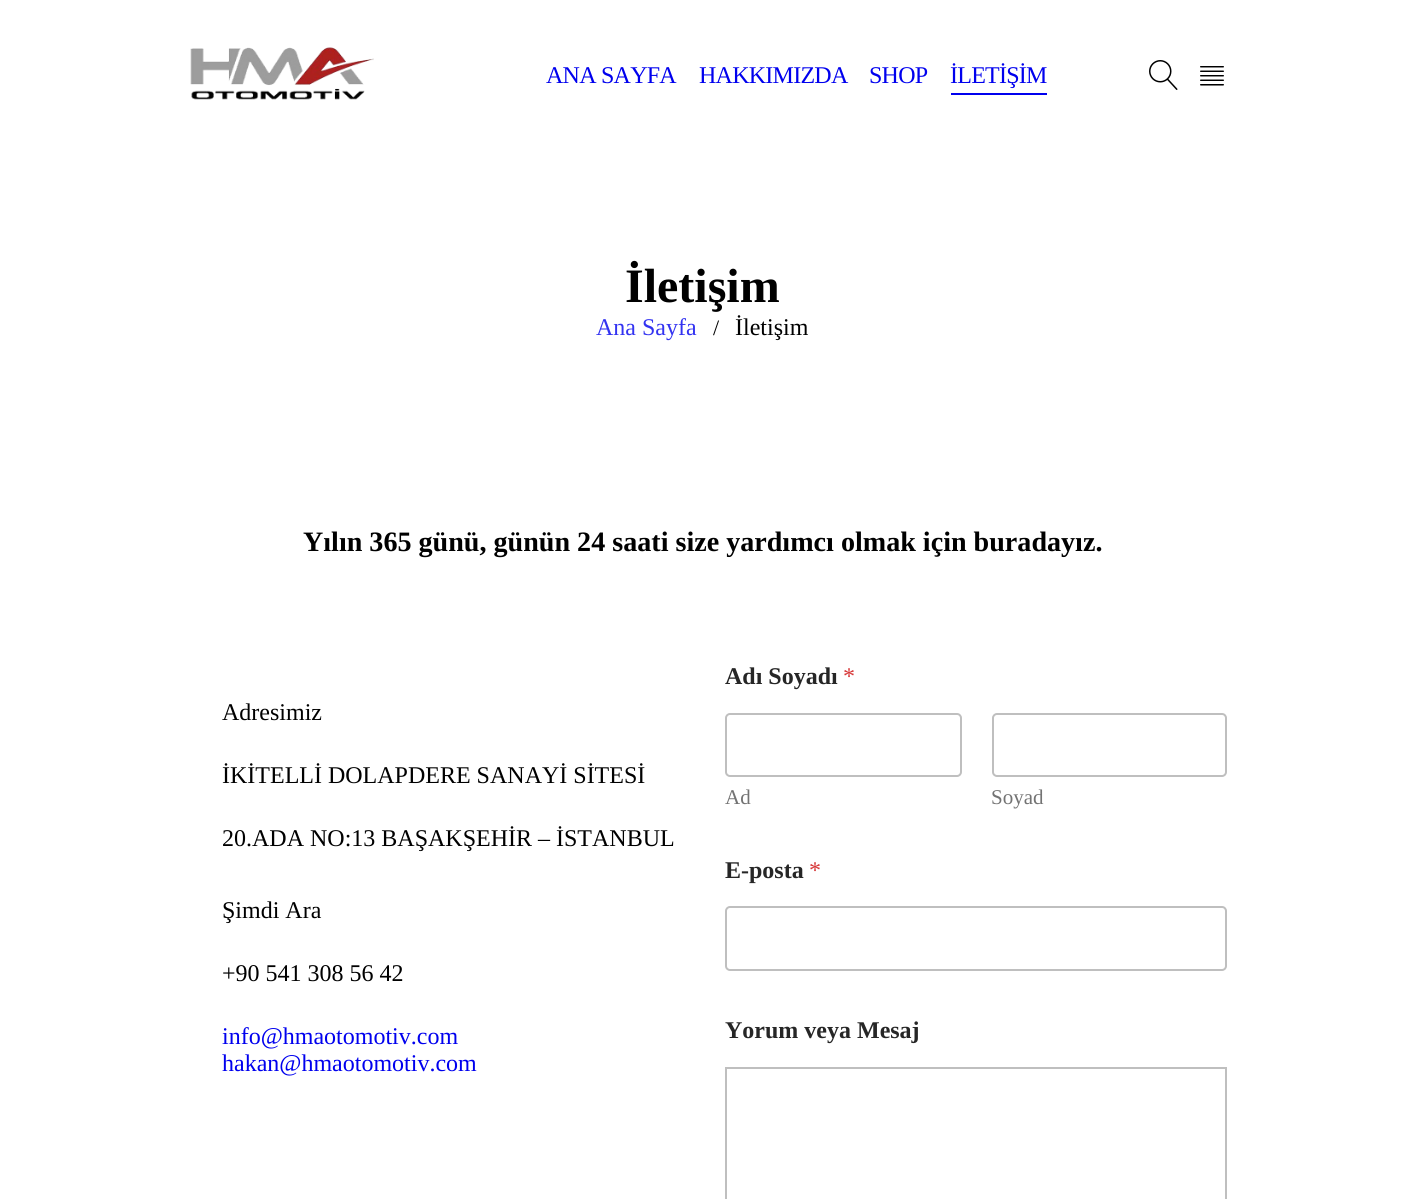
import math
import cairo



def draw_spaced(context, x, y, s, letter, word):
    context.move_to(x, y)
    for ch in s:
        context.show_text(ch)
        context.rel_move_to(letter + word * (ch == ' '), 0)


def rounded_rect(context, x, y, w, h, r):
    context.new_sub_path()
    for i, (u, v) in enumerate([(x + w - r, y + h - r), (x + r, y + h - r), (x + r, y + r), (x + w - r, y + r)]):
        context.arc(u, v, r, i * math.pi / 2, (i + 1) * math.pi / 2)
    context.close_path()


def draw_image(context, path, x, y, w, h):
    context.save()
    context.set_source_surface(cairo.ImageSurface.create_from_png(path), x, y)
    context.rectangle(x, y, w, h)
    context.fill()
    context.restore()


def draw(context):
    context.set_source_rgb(1, 1, 1)
    context.paint()
    draw_image(context, "images/1.png", 190, 47, 184, 53)
    context.set_source_rgb(0, 0, 238 / 255)
    context.rectangle(951, 93, 96, 2)
    context.fill()
    draw_image(context, "images/2.png", 1149, 60, 29, 30)
    draw_image(context, "images/3.png", 1200, 66, 24, 20)
    rounded_rect(context, 726, 714, 235, 62, 4)
    context.set_source_rgb(191 / 255, 191 / 255, 191 / 255)
    context.stroke()
    rounded_rect(context, 993, 714, 233, 62, 4)
    context.stroke()
    rounded_rect(context, 726, 907, 500, 63, 4)
    context.stroke()
    context.rectangle(726, 1068, 500, 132)
    context.stroke()
    context.select_font_face("Liberation Serif")
    context.set_font_size(24)
    context.set_source_rgb(0, 0, 238 / 255)
    draw_spaced(context, 546, 83, "ANA SAYFA", -0.75, 0)
    draw_spaced(context, 699, 83, "HAKKIMIZDA", -0.75, 0)
    draw_spaced(context, 869, 83, "SHOP", -0.75, 0)
    draw_spaced(context, 950, 83, "İLETİŞİM", -0.75, 0)
    context.select_font_face("Liberation Serif", cairo.FontSlant.NORMAL, cairo.FontWeight.BOLD)
    context.set_font_size(48)
    context.set_source_rgb(0, 0, 0)
    context.move_to(625, 302)
    context.show_text("İletişim")
    context.select_font_face("Liberation Serif")
    context.set_font_size(24)
    context.set_source_rgb(51 / 255, 51 / 255, 241 / 255)
    context.move_to(596, 335)
    context.show_text("Ana Sayfa")
    context.set_font_size(22)
    context.set_source_rgb(0, 0, 0)
    context.move_to(713, 335)
    context.show_text("/")
    context.set_font_size(24)
    context.move_to(735, 335)
    context.show_text("İletişim")
    context.select_font_face("Liberation Serif", cairo.FontSlant.NORMAL, cairo.FontWeight.BOLD)
    context.set_font_size(28.1)
    context.move_to(303, 551)
    context.show_text("Yılın 365 günü, günün 24 saati size yardımcı olmak için buradayız.")
    context.select_font_face("Liberation Serif")
    context.set_font_size(24)
    context.move_to(222, 720)
    context.show_text("Adresimiz")
    context.move_to(222, 783)
    context.show_text("İKİTELLİ DOLAPDERE SANAYİ SİTESİ")
    context.move_to(222, 846)
    context.show_text("20.ADA NO:13 BAŞAKŞEHİR – İSTANBUL")
    context.move_to(222, 918)
    context.show_text("Şimdi Ara")
    context.move_to(222, 981)
    context.show_text("+90 541 308 56 42")
    context.set_source_rgb(0, 0, 238 / 255)
    context.move_to(222, 1044)
    context.show_text("info@hmaotomotiv.com")
    context.move_to(222, 1071)
    context.show_text("hakan@hmaotomotiv.com")
    context.select_font_face("Liberation Serif", cairo.FontSlant.NORMAL, cairo.FontWeight.BOLD)
    context.set_source_rgb(38 / 255, 38 / 255, 38 / 255)
    context.move_to(725, 684)
    context.show_text("Adı Soyadı")
    context.select_font_face("Liberation Serif")
    context.set_source_rgb(214 / 255, 54 / 255, 55 / 255)
    context.move_to(843, 684)
    context.show_text("*")
    context.set_font_size(21)
    context.set_source_rgb(115 / 255, 115 / 255, 115 / 255)
    context.move_to(725, 804)
    context.show_text("Ad")
    context.move_to(991, 804)
    context.show_text("Soyad")
    context.select_font_face("Liberation Serif", cairo.FontSlant.NORMAL, cairo.FontWeight.BOLD)
    context.set_font_size(24)
    context.set_source_rgb(38 / 255, 38 / 255, 38 / 255)
    context.move_to(725, 878)
    context.show_text("E-posta")
    context.select_font_face("Liberation Serif")
    context.set_source_rgb(214 / 255, 54 / 255, 55 / 255)
    context.move_to(809, 878)
    context.show_text("*")
    context.select_font_face("Liberation Serif", cairo.FontSlant.NORMAL, cairo.FontWeight.BOLD)
    context.set_source_rgb(38 / 255, 38 / 255, 38 / 255)
    context.move_to(725, 1038)
    context.show_text("Yorum veya Mesaj")


surface = cairo.ImageSurface(cairo.Format.RGB24, 1404, 1199)
context = cairo.Context(surface)
options = cairo.FontOptions()
options.set_hint_metrics(cairo.HintMetrics.OFF)
options.set_hint_style(cairo.HintStyle.NONE)
context.set_font_options(options)
context.set_miter_limit(4)
draw(context)
surface.write_to_png("out.png")
